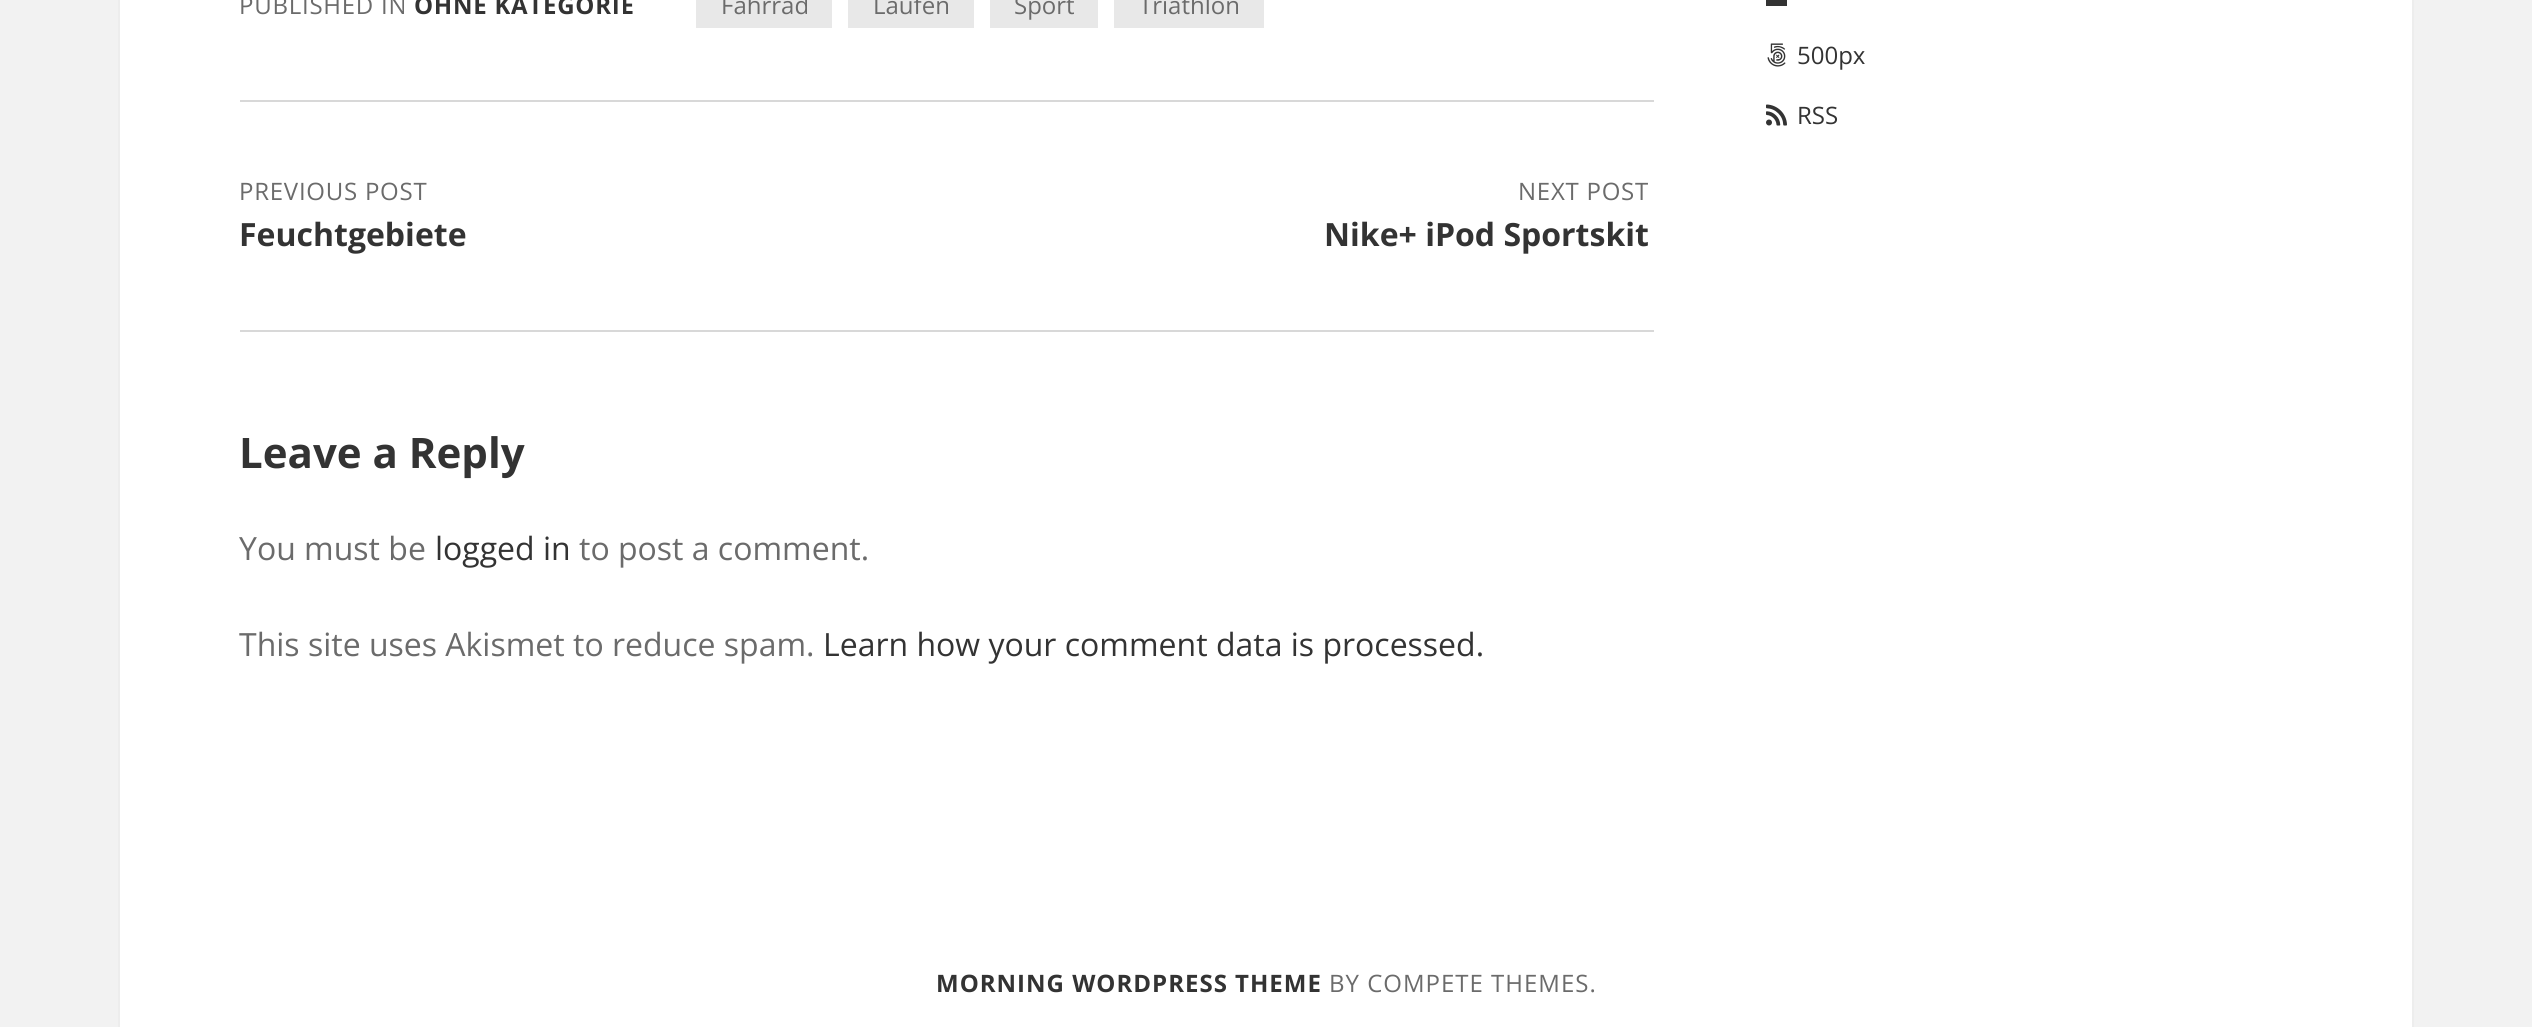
import math
import cairo



def draw_spaced(context, x, y, s, letter, word):
    context.move_to(x, y)
    for ch in s:
        context.show_text(ch)
        context.rel_move_to(letter + word * (ch == ' '), 0)


def draw_image(context, path, x, y, w, h):
    context.save()
    context.set_source_surface(cairo.ImageSurface.create_from_png(path), x, y)
    context.rectangle(x, y, w, h)
    context.fill()
    context.restore()


def draw(context):
    context.set_source_rgb(242 / 255, 242 / 255, 242 / 255)
    context.paint()
    context.set_source_rgb(1, 1, 1)
    context.rectangle(120, 0, 2292, 1027)
    context.fill()
    context.set_source_rgb(237 / 255, 237 / 255, 237 / 255)
    context.rectangle(2412, 0, 2, 1027)
    context.fill()
    context.rectangle(118, 0, 2, 1027)
    context.fill()
    context.set_source_rgb(232 / 255, 232 / 255, 232 / 255)
    context.rectangle(696, 0, 136, 28)
    context.fill()
    context.rectangle(848, 0, 126, 28)
    context.fill()
    context.rectangle(990, 0, 108, 28)
    context.fill()
    context.rectangle(1114, 0, 150, 28)
    context.fill()
    context.set_source_rgb(216 / 255, 216 / 255, 216 / 255)
    context.rectangle(240, 100, 1414, 2)
    context.fill()
    context.rectangle(240, 330, 1414, 2)
    context.fill()
    context.set_source_rgb(51 / 255, 51 / 255, 51 / 255)
    context.rectangle(1766, 0, 21, 6)
    context.fill()
    draw_image(context, "images/1.png", 1767, 43, 19, 24)
    draw_image(context, "images/2.png", 1766, 104, 21, 22)
    context.select_font_face("Open Sans")
    context.set_font_size(24)
    context.set_source_rgb(107 / 255, 107 / 255, 107 / 255)
    draw_spaced(context, 239, 14, "PUBLISHED IN", 0.75, 0)
    context.select_font_face("Open Sans", cairo.FontSlant.NORMAL, cairo.FontWeight.BOLD)
    context.set_source_rgb(51 / 255, 51 / 255, 51 / 255)
    draw_spaced(context, 414, 14, "OHNE KATEGORIE", 0.75, 0)
    context.select_font_face("Open Sans")
    context.set_source_rgb(107 / 255, 107 / 255, 107 / 255)
    context.move_to(721, 14)
    context.show_text("Fahrrad")
    context.move_to(873, 14)
    context.show_text("Laufen")
    context.move_to(1014, 14)
    context.show_text("Sport")
    context.move_to(1139, 14)
    context.show_text("Triathlon")
    draw_spaced(context, 239, 200, "PREVIOUS POST", 0.75, 0)
    context.select_font_face("Open Sans", cairo.FontSlant.NORMAL, cairo.FontWeight.BOLD)
    context.set_font_size(32)
    context.set_source_rgb(51 / 255, 51 / 255, 51 / 255)
    context.move_to(239, 246)
    context.show_text("Feuchtgebiete")
    context.select_font_face("Open Sans")
    context.set_font_size(24)
    context.set_source_rgb(107 / 255, 107 / 255, 107 / 255)
    draw_spaced(context, 1518, 200, "NEXT POST", 0.75, 0)
    context.select_font_face("Open Sans", cairo.FontSlant.NORMAL, cairo.FontWeight.BOLD)
    context.set_font_size(32)
    context.set_source_rgb(51 / 255, 51 / 255, 51 / 255)
    context.move_to(1324, 246)
    context.show_text("Nike+ iPod Sportskit")
    context.set_font_size(42)
    context.move_to(239, 468)
    context.show_text("Leave a Reply")
    context.select_font_face("Open Sans")
    context.set_font_size(32)
    context.set_source_rgb(107 / 255, 107 / 255, 107 / 255)
    context.move_to(239, 560)
    context.show_text("You must be")
    context.set_source_rgb(51 / 255, 51 / 255, 51 / 255)
    context.move_to(435, 560)
    context.show_text("logged in")
    context.set_source_rgb(107 / 255, 107 / 255, 107 / 255)
    context.move_to(579, 560)
    context.show_text("to post a comment.")
    context.move_to(239, 656)
    context.show_text("This site uses Akismet to reduce spam.")
    context.set_source_rgb(51 / 255, 51 / 255, 51 / 255)
    context.move_to(823, 656)
    context.show_text("Learn how your comment data is processed.")
    context.set_font_size(24)
    context.move_to(1797, 64)
    context.show_text("500px")
    context.move_to(1797, 124)
    context.show_text("RSS")
    context.select_font_face("Open Sans", cairo.FontSlant.NORMAL, cairo.FontWeight.BOLD)
    draw_spaced(context, 936, 992, "MORNING WORDPRESS THEME", 1, 0)
    context.select_font_face("Open Sans")
    context.set_source_rgb(107 / 255, 107 / 255, 107 / 255)
    draw_spaced(context, 1329, 992, "BY COMPETE THEMES.", 1, 0)


surface = cairo.ImageSurface(cairo.Format.RGB24, 2532, 1027)
context = cairo.Context(surface)
options = cairo.FontOptions()
options.set_hint_metrics(cairo.HintMetrics.OFF)
options.set_hint_style(cairo.HintStyle.NONE)
context.set_font_options(options)
context.set_miter_limit(4)
draw(context)
surface.write_to_png("out.png")
